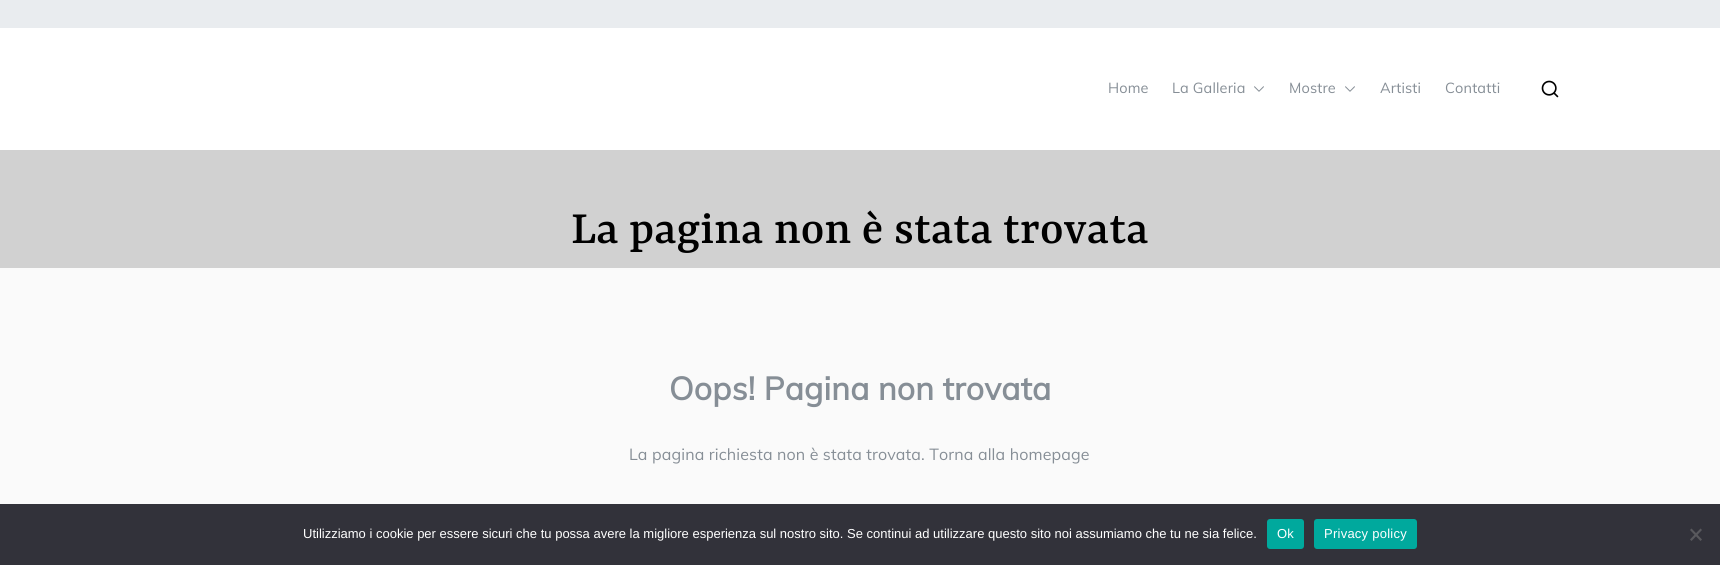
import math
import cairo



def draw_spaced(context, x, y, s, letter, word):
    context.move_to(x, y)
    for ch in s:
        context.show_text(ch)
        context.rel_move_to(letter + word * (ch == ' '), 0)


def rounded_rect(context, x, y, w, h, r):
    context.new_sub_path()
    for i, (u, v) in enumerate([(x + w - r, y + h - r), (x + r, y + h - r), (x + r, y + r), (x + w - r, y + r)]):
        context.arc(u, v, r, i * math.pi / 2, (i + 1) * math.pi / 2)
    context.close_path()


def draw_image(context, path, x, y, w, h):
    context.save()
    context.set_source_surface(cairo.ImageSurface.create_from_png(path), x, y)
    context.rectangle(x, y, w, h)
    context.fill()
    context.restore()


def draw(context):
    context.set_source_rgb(250 / 255, 250 / 255, 250 / 255)
    context.paint()
    context.set_source_rgb(233 / 255, 236 / 255, 239 / 255)
    context.rectangle(0, 0, 1720, 28)
    context.fill()
    context.set_source_rgb(1, 1, 1)
    context.rectangle(0, 28, 1720, 122)
    context.fill()
    draw_image(context, "images/1.png", 1254, 86, 10, 6)
    draw_image(context, "images/1.png", 1345, 86, 10, 6)
    draw_image(context, "images/2.png", 1541, 80, 18, 18)
    context.set_source_rgb(209 / 255, 209 / 255, 209 / 255)
    context.rectangle(0, 150, 1720, 118)
    context.fill()
    context.set_source_rgb(50 / 255, 50 / 255, 58 / 255)
    context.rectangle(0, 504, 1720, 61)
    context.fill()
    context.set_source_rgb(0, 169 / 255, 157 / 255)
    rounded_rect(context, 1267, 519, 37, 30, 3)
    context.fill()
    rounded_rect(context, 1314, 519, 103, 30, 3)
    context.fill()
    context.set_source_rgb(89 / 255, 89 / 255, 93 / 255)
    context.new_path()
    context.move_to(1700.5, 528.5)
    context.line_to(1702, 530)
    context.line_to(1691.5, 541)
    context.line_to(1690, 539.5)
    context.close_path()
    context.fill()
    context.new_path()
    context.move_to(1690, 530)
    context.line_to(1691.5, 528.5)
    context.line_to(1702, 539.5)
    context.line_to(1700.5, 541)
    context.close_path()
    context.fill()
    context.select_font_face("Muli")
    context.set_font_size(14.5)
    context.set_source_rgb(134 / 255, 142 / 255, 150 / 255)
    draw_spaced(context, 1108, 93, "Home", 0.15, 0)
    draw_spaced(context, 1172, 93, "La Galleria", 0.15, 0)
    draw_spaced(context, 1289, 93, "Mostre", 0.15, 0)
    draw_spaced(context, 1380, 93, "Artisti", 0.15, 0)
    draw_spaced(context, 1445, 93, "Contatti", 0.15, 0)
    context.select_font_face("Rasa Medium")
    context.set_font_size(50)
    context.set_source_rgb(0, 0, 0)
    draw_spaced(context, 571, 243, "La pagina non è stata trovata", 0.15, 0)
    context.select_font_face("Muli", cairo.FontSlant.NORMAL, cairo.FontWeight.BOLD)
    context.set_font_size(32)
    context.set_source_rgb(134 / 255, 142 / 255, 150 / 255)
    draw_spaced(context, 669, 400, "Oops! Pagina non trovata", 0.15, 0)
    context.select_font_face("Muli")
    context.set_font_size(16)
    draw_spaced(context, 629, 460, "La pagina richiesta non è stata trovata. Torna alla homepage", 0.15, 0)
    context.select_font_face("Liberation Sans")
    context.set_font_size(13)
    context.set_source_rgb(1, 1, 1)
    context.move_to(303, 538)
    context.show_text("Utilizziamo i cookie per essere sicuri che tu possa avere la migliore esperienza sul nostro sito. Se continui ad utilizzare questo sito noi assumiamo che tu ne sia felice.")
    draw_spaced(context, 1277, 538, "Ok", 0.25, 0)
    draw_spaced(context, 1324, 538, "Privacy policy", 0.25, 0)


surface = cairo.ImageSurface(cairo.Format.RGB24, 1720, 565)
context = cairo.Context(surface)
options = cairo.FontOptions()
options.set_hint_metrics(cairo.HintMetrics.OFF)
options.set_hint_style(cairo.HintStyle.NONE)
context.set_font_options(options)
context.set_miter_limit(4)
draw(context)
surface.write_to_png("out.png")
